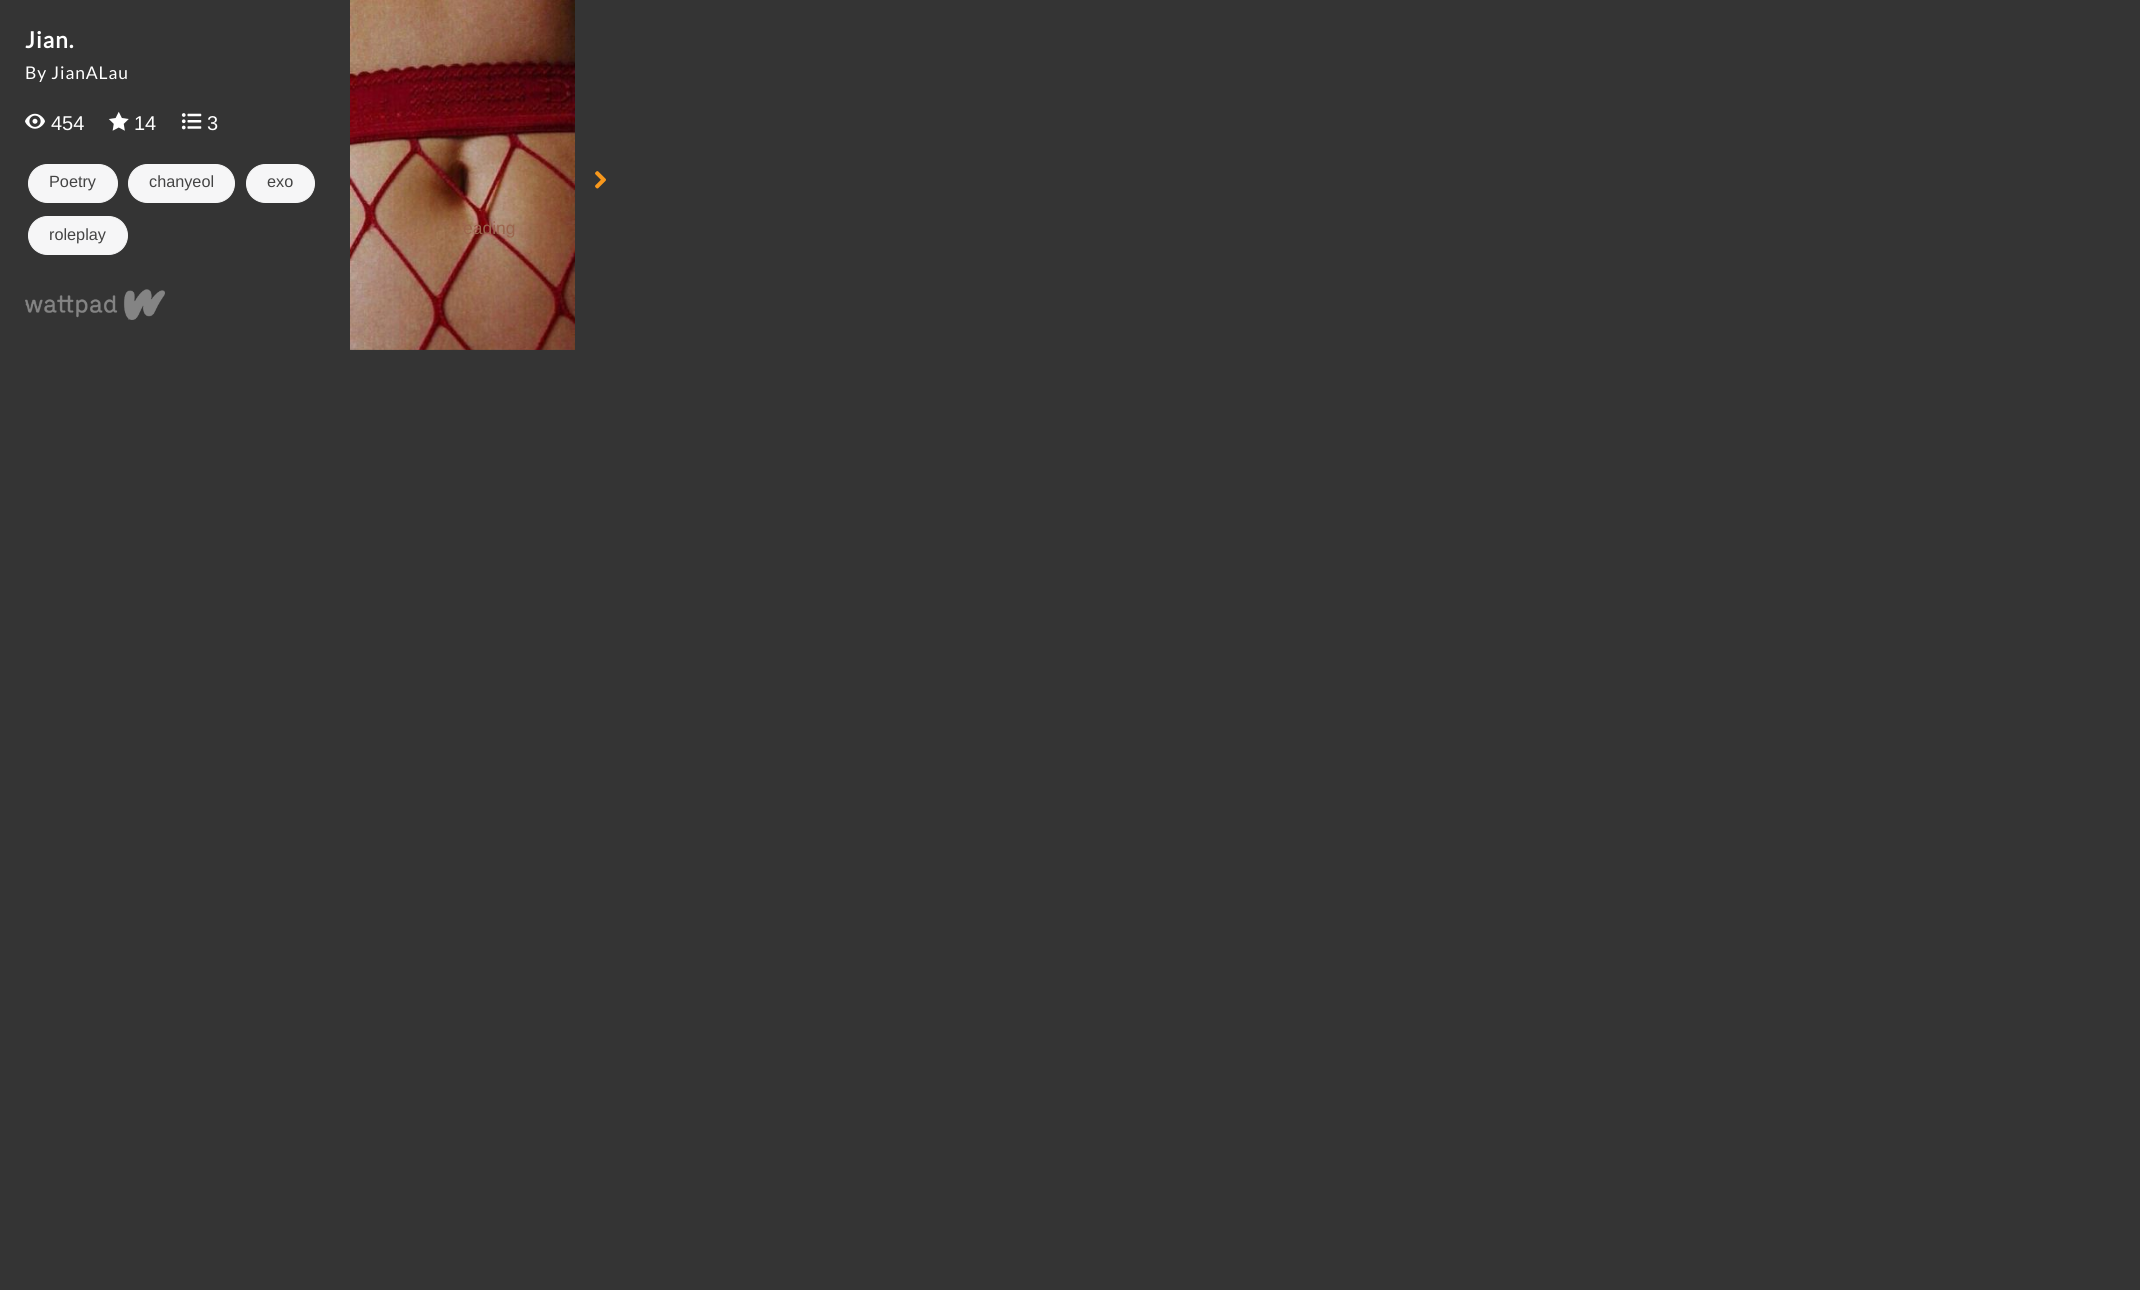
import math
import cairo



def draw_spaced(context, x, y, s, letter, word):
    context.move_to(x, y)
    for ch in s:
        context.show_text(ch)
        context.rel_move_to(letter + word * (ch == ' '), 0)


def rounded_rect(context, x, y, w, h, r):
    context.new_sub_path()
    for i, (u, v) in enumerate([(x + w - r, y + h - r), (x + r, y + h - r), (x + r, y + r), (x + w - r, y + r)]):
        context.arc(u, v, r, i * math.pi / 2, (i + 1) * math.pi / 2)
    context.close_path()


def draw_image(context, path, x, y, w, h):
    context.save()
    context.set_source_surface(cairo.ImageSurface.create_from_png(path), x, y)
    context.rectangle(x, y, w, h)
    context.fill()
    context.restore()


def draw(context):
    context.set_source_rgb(52 / 255, 52 / 255, 52 / 255)
    context.paint()
    draw_image(context, "images/1.png", 25, 113, 20, 16)
    draw_image(context, "images/2.png", 108, 111, 21, 20)
    draw_image(context, "images/3.png", 181, 113, 21, 17)
    context.set_source_rgb(246 / 255, 246 / 255, 247 / 255)
    rounded_rect(context, 28.5, 164.5, 89, 38, 19)
    context.fill_preserve()
    context.set_line_width(1)
    context.stroke()
    rounded_rect(context, 128.5, 164.5, 106, 38, 19)
    context.fill_preserve()
    context.stroke()
    rounded_rect(context, 246.5, 164.5, 68, 38, 19)
    context.fill_preserve()
    context.stroke()
    rounded_rect(context, 28.5, 216.5, 99, 38, 19)
    context.fill_preserve()
    context.stroke()
    draw_image(context, "images/4.png", 25, 289, 140, 31)
    draw_image(context, "images/5.png", 595, 171, 11, 18)
    draw_image(context, "images/6.png", 350, 0, 225, 350)
    context.select_font_face("Lato", cairo.FontSlant.NORMAL, cairo.FontWeight.BOLD)
    context.set_font_size(22.5)
    context.set_source_rgb(1, 1, 1)
    draw_spaced(context, 25, 48, "Jian.", 1, 0)
    context.select_font_face("Lato")
    context.set_font_size(17.5)
    draw_spaced(context, 25, 79, "By JianALau", 0.9, 0)
    context.select_font_face("Liberation Sans")
    context.set_font_size(20)
    context.move_to(51, 130)
    context.show_text("454")
    context.move_to(134, 130)
    context.show_text("14")
    context.move_to(207, 130)
    context.show_text("3")
    context.set_font_size(16.25)
    context.set_source_rgb(68 / 255, 68 / 255, 68 / 255)
    context.move_to(49, 187)
    context.show_text("Poetry")
    context.move_to(149, 187)
    context.show_text("chanyeol")
    context.move_to(267, 187)
    context.show_text("exo")
    context.move_to(49, 240)
    context.show_text("roleplay")
    context.set_font_size(17.5)
    context.set_source_rgb(155 / 255, 101 / 255, 77 / 255)
    context.move_to(463, 234)
    context.show_text("eading")


surface = cairo.ImageSurface(cairo.Format.RGB24, 2140, 1290)
context = cairo.Context(surface)
options = cairo.FontOptions()
options.set_hint_metrics(cairo.HintMetrics.OFF)
options.set_hint_style(cairo.HintStyle.NONE)
context.set_font_options(options)
context.set_miter_limit(4)
draw(context)
surface.write_to_png("out.png")
